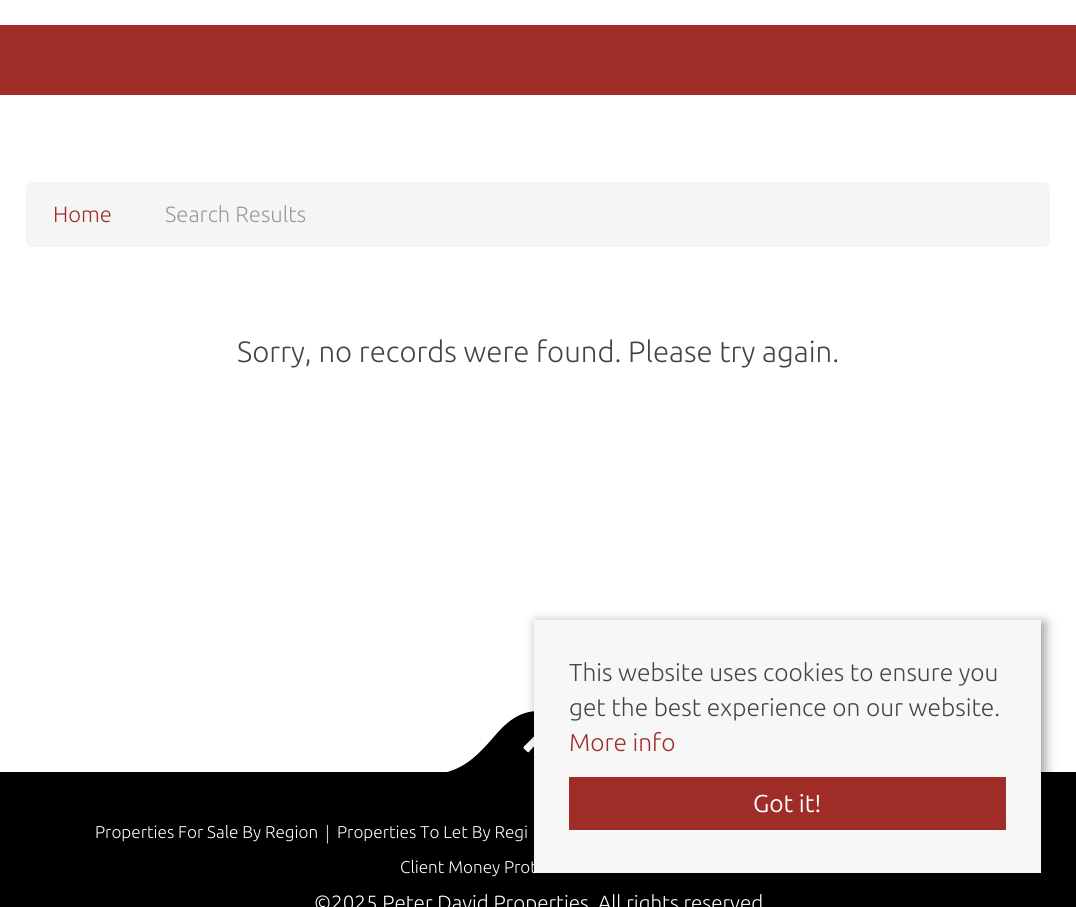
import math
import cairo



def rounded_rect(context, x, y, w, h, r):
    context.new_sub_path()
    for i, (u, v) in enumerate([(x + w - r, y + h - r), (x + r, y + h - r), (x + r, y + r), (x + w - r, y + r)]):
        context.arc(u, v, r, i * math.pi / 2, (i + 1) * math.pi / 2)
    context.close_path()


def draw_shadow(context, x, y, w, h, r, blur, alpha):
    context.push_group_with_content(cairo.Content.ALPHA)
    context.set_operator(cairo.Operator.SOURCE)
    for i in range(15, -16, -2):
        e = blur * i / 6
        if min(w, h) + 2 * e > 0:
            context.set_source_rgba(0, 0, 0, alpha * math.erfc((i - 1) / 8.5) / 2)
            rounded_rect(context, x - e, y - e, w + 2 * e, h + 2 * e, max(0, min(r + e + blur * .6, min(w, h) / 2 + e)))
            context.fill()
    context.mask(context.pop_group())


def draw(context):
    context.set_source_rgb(160 / 255, 44 / 255, 40 / 255)
    context.paint()
    context.set_source_rgb(1, 1, 1)
    context.rectangle(0, 0, 1076, 25)
    context.fill()
    context.rectangle(0, 95, 1076, 677)
    context.fill()
    context.set_source_rgb(245 / 255, 245 / 255, 245 / 255)
    rounded_rect(context, 26, 182, 1024, 65, 7)
    context.fill()
    context.set_source_rgb(0, 0, 0)
    context.rectangle(0, 772, 1076, 135)
    context.fill()
    context.new_path()
    context.move_to(647, 774)
    context.curve_to(618, 774, 601, 756, 586, 739)
    context.curve_to(572, 722, 559, 711, 539, 711)
    context.curve_to(519, 711, 506, 722, 492, 739)
    context.curve_to(477, 756, 460, 774, 431, 774)
    context.curve_to(425, 774, 653, 774, 647, 774)
    context.close_path()
    context.fill()
    context.set_source_rgb(1, 1, 1)
    context.new_path()
    context.move_to(523.5, 747)
    context.line_to(535.5, 735)
    context.curve_to(539.5, 731.5, 538, 731.5, 542, 735)
    context.line_to(551.5, 745)
    context.curve_to(554, 747, 555.5, 747.5, 553.5, 749.5)
    context.curve_to(550, 753, 551, 753.5, 547.5, 750)
    context.line_to(539, 741.5)
    context.line_to(532, 748.5)
    context.curve_to(528.5, 752, 529, 754, 526, 750.5)
    context.curve_to(525.5, 750, 523, 748.5, 523.5, 747)
    context.close_path()
    context.fill()
    context.set_source_rgb(0, 0, 0)
    draw_shadow(context, 537, 623, 508, 254, 0, 6, 0.4)
    context.select_font_face("Ubuntu Light")
    context.set_font_size(22)
    context.set_source_rgb(160 / 255, 44 / 255, 40 / 255)
    context.move_to(53, 222)
    context.show_text("Home")
    context.set_source_rgb(153 / 255, 153 / 255, 153 / 255)
    context.move_to(165, 222)
    context.show_text("Search Results")
    context.set_font_size(29.4)
    context.set_source_rgb(68 / 255, 68 / 255, 68 / 255)
    context.move_to(237, 362)
    context.show_text("Sorry, no records were found. Please try again.")
    context.set_font_size(17.1)
    context.set_source_rgb(1, 1, 1)
    context.move_to(95, 838)
    context.show_text("Properties For Sale By Region")
    context.set_font_size(19)
    context.set_source_rgb(204 / 255, 204 / 255, 204 / 255)
    context.move_to(325, 840)
    context.show_text("|")
    context.set_font_size(17.1)
    context.set_source_rgb(1, 1, 1)
    context.move_to(337, 838)
    context.show_text("Properties To Let By Regi")
    context.move_to(400, 873)
    context.show_text("Client Money Prot")
    context.set_font_size(20.6)
    context.move_to(314, 910)
    context.show_text("©2025 Peter David Properties")
    context.move_to(598, 910)
    context.show_text("All rights reserved")
    context.set_source_rgb(247 / 255, 247 / 255, 247 / 255)
    context.rectangle(534, 620, 507, 253)
    context.fill()
    context.set_font_size(24.5)
    context.set_source_rgb(68 / 255, 68 / 255, 68 / 255)
    context.move_to(569, 681)
    context.show_text("This website uses cookies to ensure you")
    context.move_to(569, 716)
    context.show_text("get the best experience on our website.")
    context.set_source_rgb(160 / 255, 44 / 255, 40 / 255)
    context.move_to(569, 751)
    context.show_text("More info")
    context.rectangle(569, 777, 437, 53)
    context.fill()
    context.select_font_face("Ubuntu")
    context.set_source_rgb(1, 1, 1)
    context.move_to(753, 812)
    context.show_text("Got it!")


surface = cairo.ImageSurface(cairo.Format.RGB24, 1076, 907)
context = cairo.Context(surface)
options = cairo.FontOptions()
options.set_hint_metrics(cairo.HintMetrics.OFF)
options.set_hint_style(cairo.HintStyle.NONE)
context.set_font_options(options)
context.set_miter_limit(4)
draw(context)
surface.write_to_png("out.png")
